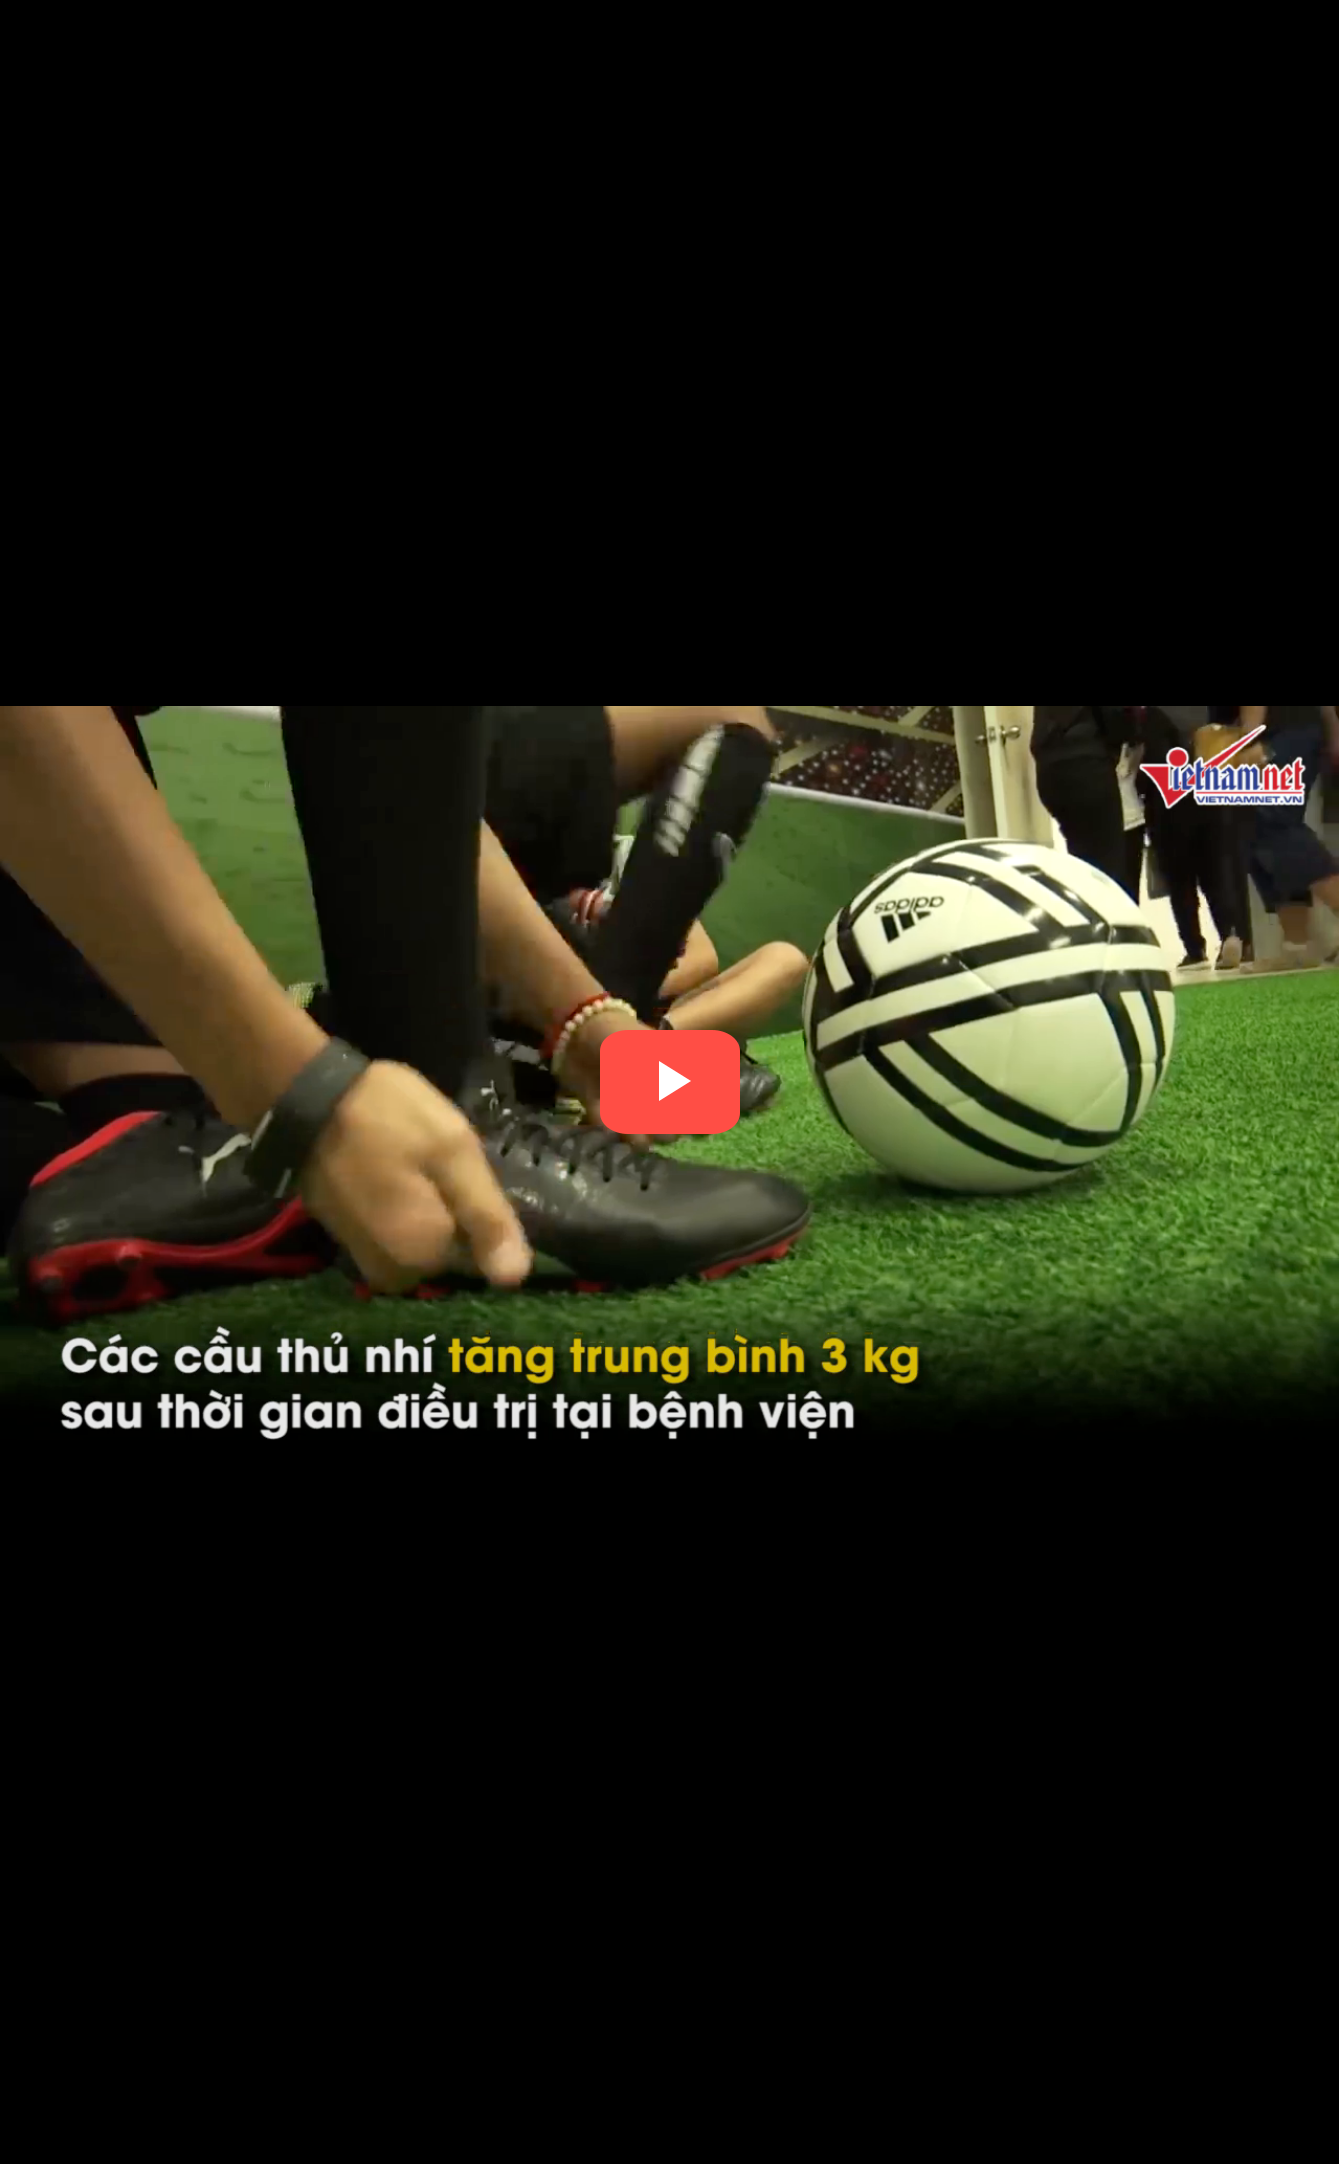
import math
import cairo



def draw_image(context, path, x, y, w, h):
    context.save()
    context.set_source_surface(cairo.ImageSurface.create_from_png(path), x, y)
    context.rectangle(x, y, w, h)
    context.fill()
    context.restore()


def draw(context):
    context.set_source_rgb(0, 0, 0)
    context.paint()
    draw_image(context, "images/1.png", 0, 706, 1339, 734)
    context.set_source_rgb(1, 78 / 255, 69 / 255)
    context.new_path()
    context.move_to(628, 1030)
    context.line_to(712, 1030)
    context.curve_to(727, 1030, 740, 1039, 740, 1051)
    context.line_to(740, 1113)
    context.curve_to(740, 1125, 727, 1134, 712, 1134)
    context.line_to(628, 1134)
    context.curve_to(613, 1134, 600, 1125, 600, 1113)
    context.line_to(600, 1051)
    context.curve_to(600, 1039, 613, 1030, 628, 1030)
    context.close_path()
    context.fill()
    context.set_source_rgb(1, 1, 1)
    context.new_path()
    context.move_to(659, 1061)
    context.line_to(659, 1101)
    context.line_to(691, 1081)
    context.close_path()
    context.fill()


surface = cairo.ImageSurface(cairo.Format.RGB24, 1339, 2164)
context = cairo.Context(surface)
options = cairo.FontOptions()
options.set_hint_metrics(cairo.HintMetrics.OFF)
options.set_hint_style(cairo.HintStyle.NONE)
context.set_font_options(options)
context.set_miter_limit(4)
draw(context)
surface.write_to_png("out.png")
